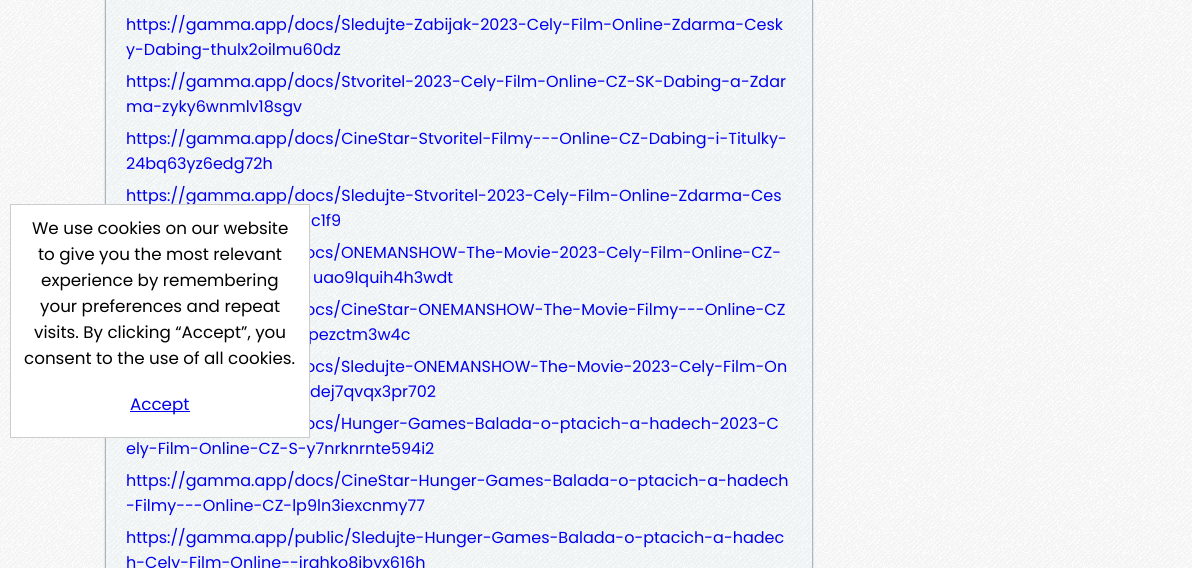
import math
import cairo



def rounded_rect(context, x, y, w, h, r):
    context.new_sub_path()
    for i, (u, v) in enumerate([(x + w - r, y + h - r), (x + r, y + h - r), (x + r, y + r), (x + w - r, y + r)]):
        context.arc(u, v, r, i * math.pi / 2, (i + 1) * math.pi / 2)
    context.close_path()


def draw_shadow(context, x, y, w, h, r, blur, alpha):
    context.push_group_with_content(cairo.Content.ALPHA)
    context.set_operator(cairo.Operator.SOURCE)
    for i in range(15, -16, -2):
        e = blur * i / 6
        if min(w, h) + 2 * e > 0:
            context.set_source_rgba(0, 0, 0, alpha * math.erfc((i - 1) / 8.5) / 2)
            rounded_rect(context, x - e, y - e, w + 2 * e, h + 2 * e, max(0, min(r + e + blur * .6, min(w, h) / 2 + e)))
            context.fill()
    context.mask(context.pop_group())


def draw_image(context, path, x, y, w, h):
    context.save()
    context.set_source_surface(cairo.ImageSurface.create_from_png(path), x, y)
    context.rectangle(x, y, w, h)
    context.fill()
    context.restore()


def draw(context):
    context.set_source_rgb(1, 1, 1)
    context.paint()
    draw_image(context, "images/1.png", 0, 0, 1192, 568)
    context.save()
    context.set_fill_rule(cairo.FillRule.EVEN_ODD)
    context.new_path()
    context.move_to(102, 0)
    context.line_to(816, 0)
    context.line_to(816, 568)
    context.line_to(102, 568)
    context.close_path()
    context.move_to(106, -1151)
    context.line_to(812, -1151)
    context.line_to(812, 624)
    context.line_to(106, 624)
    context.close_path()
    context.clip()
    context.set_source_rgb(23 / 255, 47 / 255, 84 / 255)
    draw_shadow(context, 106, -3, 706, 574, 0, 1, 1)
    context.restore()
    context.set_source_rgba(142 / 255, 223 / 255, 230 / 255, 0.04)
    context.rectangle(106, 0, 706, 568)
    context.fill()
    context.select_font_face("Poppins")
    context.set_font_size(16)
    context.set_source_rgb(0, 0, 238 / 255)
    context.move_to(126, 30)
    context.show_text("https://gamma.app/docs/Sledujte-Zabijak-2023-Cely-Film-Online-Zdarma-Cesk")
    context.move_to(126, 55)
    context.show_text("y-Dabing-thulx2oilmu60dz")
    context.move_to(126, 87)
    context.show_text("https://gamma.app/docs/Stvoritel-2023-Cely-Film-Online-CZ-SK-Dabing-a-Zdar")
    context.move_to(126, 112)
    context.show_text("ma-zyky6wnmlv18sgv")
    context.move_to(126, 144)
    context.show_text("https://gamma.app/docs/CineStar-Stvoritel-Filmy---Online-CZ-Dabing-i-Titulky-")
    context.move_to(126, 169)
    context.show_text("24bq63yz6edg72h")
    context.move_to(126, 201)
    context.show_text("https://gamma.app/docs/Sledujte-Stvoritel-2023-Cely-Film-Online-Zdarma-Ces")
    context.move_to(311, 226)
    context.show_text("c1f9")
    context.move_to(305, 258)
    context.show_text("ocs/ONEMANSHOW-The-Movie-2023-Cely-Film-Online-CZ-")
    context.move_to(313, 283)
    context.show_text("uao9lquih4h3wdt")
    context.move_to(305, 315)
    context.show_text("ocs/CineStar-ONEMANSHOW-The-Movie-Filmy---Online-CZ")
    context.move_to(308, 340)
    context.show_text("pezctm3w4c")
    context.move_to(305, 372)
    context.show_text("ocs/Sledujte-ONEMANSHOW-The-Movie-2023-Cely-Film-On")
    context.move_to(310, 397)
    context.show_text("dej7qvqx3pr702")
    context.move_to(305, 429)
    context.show_text("ocs/Hunger-Games-Balada-o-ptacich-a-hadech-2023-C")
    context.move_to(126, 454)
    context.show_text("ely-Film-Online-CZ-S-y7nrknrnte594i2")
    context.move_to(126, 486)
    context.show_text("https://gamma.app/docs/CineStar-Hunger-Games-Balada-o-ptacich-a-hadech")
    context.move_to(126, 511)
    context.show_text("-Filmy---Online-CZ-lp9ln3iexcnmy77")
    context.move_to(126, 543)
    context.show_text("https://gamma.app/public/Sledujte-Hunger-Games-Balada-o-ptacich-a-hadec")
    context.move_to(126, 568)
    context.show_text("h-Cely-Film-Online--jrghko8jbyx616h")
    context.set_source_rgb(1, 1, 1)
    context.rectangle(10.5, 204.5, 299, 233)
    context.fill_preserve()
    context.set_source_rgb(204 / 255, 204 / 255, 204 / 255)
    context.set_line_width(1)
    context.stroke()
    context.set_font_size(16.75)
    context.set_source_rgb(0, 0, 0)
    context.move_to(32, 234)
    context.show_text("We use cookies on our website")
    context.move_to(38, 260)
    context.show_text("to give you the most relevant")
    context.move_to(41, 286)
    context.show_text("experience by remembering")
    context.move_to(40, 312)
    context.show_text("your preferences and repeat")
    context.move_to(34, 338)
    context.show_text("visits. By clicking “Accept”, you")
    context.move_to(24, 364)
    context.show_text("consent to the use of all cookies.")
    context.set_source_rgb(0, 0, 238 / 255)
    context.rectangle(130, 411, 60, 1)
    context.fill()
    context.move_to(130, 410)
    context.show_text("Accept")


surface = cairo.ImageSurface(cairo.Format.RGB24, 1192, 568)
context = cairo.Context(surface)
options = cairo.FontOptions()
options.set_hint_metrics(cairo.HintMetrics.OFF)
options.set_hint_style(cairo.HintStyle.NONE)
context.set_font_options(options)
context.set_miter_limit(4)
draw(context)
surface.write_to_png("out.png")
